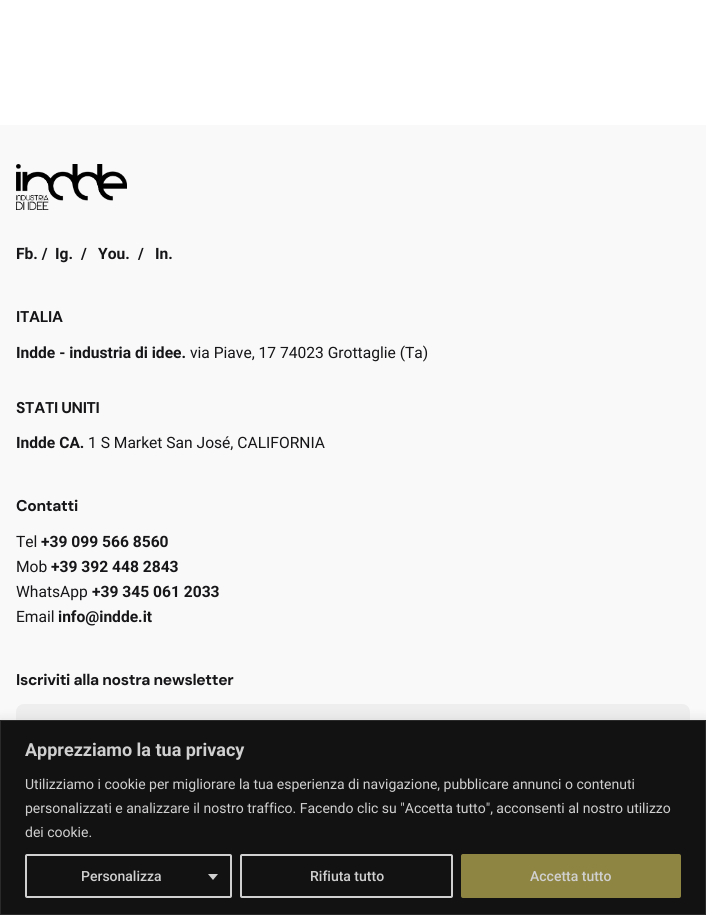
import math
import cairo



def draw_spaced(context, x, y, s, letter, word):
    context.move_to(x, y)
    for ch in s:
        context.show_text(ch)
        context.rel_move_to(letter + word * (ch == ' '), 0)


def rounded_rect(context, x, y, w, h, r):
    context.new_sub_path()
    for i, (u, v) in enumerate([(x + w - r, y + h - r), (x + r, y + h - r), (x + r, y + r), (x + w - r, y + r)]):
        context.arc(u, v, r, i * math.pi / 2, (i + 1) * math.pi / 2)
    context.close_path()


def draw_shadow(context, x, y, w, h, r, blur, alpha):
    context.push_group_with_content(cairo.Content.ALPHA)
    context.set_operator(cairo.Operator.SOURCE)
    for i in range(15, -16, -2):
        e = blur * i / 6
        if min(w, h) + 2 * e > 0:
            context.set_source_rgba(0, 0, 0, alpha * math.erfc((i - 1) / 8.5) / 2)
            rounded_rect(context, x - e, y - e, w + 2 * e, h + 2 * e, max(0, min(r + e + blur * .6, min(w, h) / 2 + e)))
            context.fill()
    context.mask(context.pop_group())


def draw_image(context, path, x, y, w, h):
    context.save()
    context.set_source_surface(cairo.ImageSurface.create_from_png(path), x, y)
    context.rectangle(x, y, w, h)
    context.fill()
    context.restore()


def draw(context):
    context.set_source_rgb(1, 1, 1)
    context.paint()
    context.set_source_rgb(249 / 255, 249 / 255, 249 / 255)
    context.rectangle(0, 125, 706, 595)
    context.fill()
    draw_image(context, "images/1.png", 16, 164, 111, 46)
    context.set_source_rgb(238 / 255, 238 / 255, 238 / 255)
    rounded_rect(context, 16, 704, 674, 44, 8)
    context.fill()
    context.set_source_rgb(172 / 255, 171 / 255, 171 / 255)
    draw_shadow(context, 0, 719, 706, 195, 0, 5, 0.3)
    context.set_source_rgb(18 / 255, 18 / 255, 18 / 255)
    context.rectangle(0.5, 720.5, 705, 194)
    context.fill_preserve()
    context.set_source_rgb(42 / 255, 42 / 255, 42 / 255)
    context.set_line_width(1)
    context.stroke()
    rounded_rect(context, 26, 855, 205, 42, 1)
    context.set_source_rgb(208 / 255, 208 / 255, 208 / 255)
    context.set_line_width(2)
    context.stroke()
    context.new_path()
    context.move_to(208, 874)
    context.line_to(218, 874)
    context.line_to(213, 880)
    context.close_path()
    context.fill()
    rounded_rect(context, 241, 855, 211, 42, 1)
    context.stroke()
    context.set_source_rgb(142 / 255, 133 / 255, 66 / 255)
    rounded_rect(context, 462, 855, 218, 42, 1)
    context.fill_preserve()
    context.stroke()
    context.select_font_face("Roboto", cairo.FontSlant.NORMAL, cairo.FontWeight.BOLD)
    context.set_font_size(15.6)
    context.set_source_rgb(22 / 255, 21 / 255, 24 / 255)
    context.move_to(16, 259)
    context.show_text("Fb. /")
    context.move_to(55, 259)
    context.show_text("Ig.")
    context.move_to(81, 259)
    context.show_text("/")
    context.move_to(98, 259)
    context.show_text("You.")
    context.move_to(138, 259)
    context.show_text("/")
    context.move_to(155, 259)
    context.show_text("In.")
    context.select_font_face("DM Sans", cairo.FontSlant.NORMAL, cairo.FontWeight.BOLD)
    draw_spaced(context, 16, 322, "ITALIA", -0.3, 0)
    context.select_font_face("Roboto", cairo.FontSlant.NORMAL, cairo.FontWeight.BOLD)
    context.move_to(16, 358)
    context.show_text("Indde - industria di idee.")
    context.select_font_face("Roboto")
    context.move_to(190, 358)
    context.show_text("via Piave, 17 74023 Grottaglie (Ta)")
    context.select_font_face("DM Sans", cairo.FontSlant.NORMAL, cairo.FontWeight.BOLD)
    draw_spaced(context, 16, 413, "STATI UNITI", -0.3, 0)
    context.select_font_face("Roboto", cairo.FontSlant.NORMAL, cairo.FontWeight.BOLD)
    context.move_to(16, 448)
    context.show_text("Indde CA.")
    context.select_font_face("Roboto")
    context.move_to(88, 448)
    context.show_text("1 S Market San José, CALIFORNIA")
    context.select_font_face("DM Sans", cairo.FontSlant.NORMAL, cairo.FontWeight.BOLD)
    draw_spaced(context, 16, 511, "Contatti", -0.3, 0)
    context.select_font_face("Roboto")
    context.move_to(16, 547)
    context.show_text("Tel")
    context.select_font_face("Roboto", cairo.FontSlant.NORMAL, cairo.FontWeight.BOLD)
    context.move_to(41, 547)
    context.show_text("+39 099 566 8560")
    context.select_font_face("Roboto")
    context.move_to(16, 572)
    context.show_text("Mob")
    context.select_font_face("Roboto", cairo.FontSlant.NORMAL, cairo.FontWeight.BOLD)
    context.move_to(51, 572)
    context.show_text("+39 392 448 2843")
    context.select_font_face("Roboto")
    context.move_to(16, 597)
    context.show_text("WhatsApp")
    context.select_font_face("Roboto", cairo.FontSlant.NORMAL, cairo.FontWeight.BOLD)
    context.move_to(92, 597)
    context.show_text("+39 345 061 2033")
    context.select_font_face("Roboto")
    context.move_to(16, 622)
    context.show_text("Email")
    context.select_font_face("Roboto", cairo.FontSlant.NORMAL, cairo.FontWeight.BOLD)
    context.move_to(58, 622)
    context.show_text("info@indde.it")
    context.select_font_face("DM Sans", cairo.FontSlant.NORMAL, cairo.FontWeight.BOLD)
    draw_spaced(context, 16, 685, "Iscriviti alla nostra newsletter", -0.3, 0)
    context.select_font_face("Roboto", cairo.FontSlant.NORMAL, cairo.FontWeight.BOLD)
    context.set_font_size(18)
    context.set_source_rgb(208 / 255, 208 / 255, 208 / 255)
    context.move_to(25, 756)
    context.show_text("Apprezziamo la tua privacy")
    context.select_font_face("Roboto")
    context.set_font_size(14)
    context.move_to(25, 789)
    context.show_text("Utilizziamo i cookie per migliorare la tua esperienza di navigazione, pubblicare annunci o contenuti")
    context.move_to(25, 813)
    context.show_text("personalizzati e analizzare il nostro traffico. Facendo clic su \"Accetta tutto\", acconsenti al nostro utilizzo")
    context.move_to(25, 837)
    context.show_text("dei cookie.")
    context.select_font_face("Roboto Medium")
    context.move_to(81, 881)
    context.show_text("Personalizza")
    context.move_to(310, 881)
    context.show_text("Rifiuta tutto")
    context.move_to(530, 881)
    context.show_text("Accetta tutto")


surface = cairo.ImageSurface(cairo.Format.RGB24, 706, 915)
context = cairo.Context(surface)
options = cairo.FontOptions()
options.set_hint_metrics(cairo.HintMetrics.OFF)
options.set_hint_style(cairo.HintStyle.NONE)
context.set_font_options(options)
context.set_miter_limit(4)
draw(context)
surface.write_to_png("out.png")
